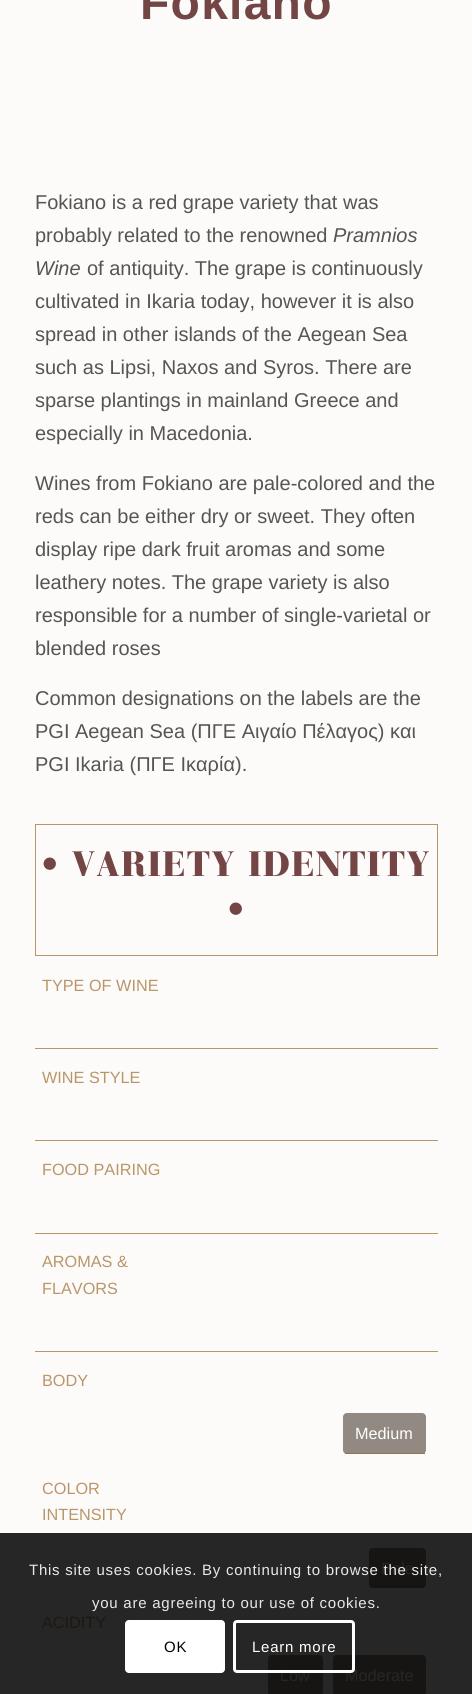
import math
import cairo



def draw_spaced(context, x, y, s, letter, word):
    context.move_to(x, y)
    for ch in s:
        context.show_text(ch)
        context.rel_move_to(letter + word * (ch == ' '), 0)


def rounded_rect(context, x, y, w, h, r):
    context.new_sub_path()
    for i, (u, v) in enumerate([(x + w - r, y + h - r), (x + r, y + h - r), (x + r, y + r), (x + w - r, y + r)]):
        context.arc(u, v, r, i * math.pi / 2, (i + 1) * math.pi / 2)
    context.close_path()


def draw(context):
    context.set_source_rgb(252 / 255, 251 / 255, 250 / 255)
    context.paint()
    context.set_source_rgb(38 / 255, 38 / 255, 38 / 255)
    context.rectangle(0, 1533, 472, 161)
    context.fill()
    context.rectangle(35.5, 824.5, 402, 131)
    context.set_source_rgb(185 / 255, 150 / 255, 104 / 255)
    context.set_line_width(1)
    context.stroke()
    context.rectangle(35, 1048, 403, 1)
    context.fill()
    context.rectangle(35, 1140, 403, 1)
    context.fill()
    context.rectangle(35, 1233, 403, 1)
    context.fill()
    context.rectangle(35, 1351, 403, 1)
    context.fill()
    context.set_source_rgb(146 / 255, 138 / 255, 130 / 255)
    rounded_rect(context, 343, 1413, 83, 41, 4)
    context.fill()
    context.set_source_rgb(151 / 255, 116 / 255, 70 / 255)
    context.rectangle(345, 1453, 80, 1)
    context.fill()
    context.set_source_rgb(22 / 255, 21 / 255, 20 / 255)
    rounded_rect(context, 369, 1548, 57, 40, 4)
    context.fill()
    context.set_source_rgb(23 / 255, 17 / 255, 11 / 255)
    context.rectangle(371, 1586, 54, 1)
    context.fill()
    context.set_source_rgb(22 / 255, 21 / 255, 20 / 255)
    rounded_rect(context, 268, 1655, 55, 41, 4)
    context.fill()
    rounded_rect(context, 333, 1655, 93, 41, 4)
    context.fill()
    context.set_source_rgb(1, 1, 1)
    rounded_rect(context, 125, 1620, 100, 53, 4)
    context.fill()
    context.select_font_face("Liberation Sans", cairo.FontSlant.NORMAL, cairo.FontWeight.BOLD)
    context.set_font_size(48)
    context.set_source_rgb(115 / 255, 69 / 255, 68 / 255)
    draw_spaced(context, 140, 19, "Fokiano", 1.25, 0)
    context.select_font_face("Liberation Sans")
    context.set_font_size(20)
    context.set_source_rgb(85 / 255, 85 / 255, 85 / 255)
    context.move_to(35, 209)
    context.show_text("Fokiano is a red grape variety that was")
    context.move_to(35, 242)
    context.show_text("probably related to the renowned")
    context.select_font_face("Liberation Sans", cairo.FontSlant.ITALIC)
    context.move_to(333, 242)
    context.show_text("Pramnios")
    context.move_to(35, 275)
    context.show_text("Wine")
    context.select_font_face("Liberation Sans")
    context.move_to(87, 275)
    context.show_text("of antiquity. The grape is continuously")
    context.move_to(35, 308)
    context.show_text("cultivated in Ikaria today, however it is also")
    context.move_to(35, 341)
    context.show_text("spread in other islands of the Aegean Sea")
    context.move_to(35, 374)
    context.show_text("such as Lipsi, Naxos and Syros. There are")
    context.move_to(35, 407)
    context.show_text("sparse plantings in mainland Greece and")
    context.move_to(35, 440)
    context.show_text("especially in Macedonia.")
    context.move_to(35, 490)
    context.show_text("Wines from Fokiano are pale-colored and the")
    context.move_to(35, 523)
    context.show_text("reds can be either dry or sweet. They often")
    context.move_to(35, 556)
    context.show_text("display ripe dark fruit aromas and some")
    context.move_to(35, 589)
    context.show_text("leathery notes. The grape variety is also")
    context.move_to(35, 622)
    context.show_text("responsible for a number of single-varietal or")
    context.move_to(35, 655)
    context.show_text("blended roses")
    context.move_to(35, 705)
    context.show_text("Common designations on the labels are the")
    context.move_to(35, 738)
    context.show_text("PGI Aegean Sea (ΠΓΕ Αιγαίο Πέλαγος) και")
    context.move_to(35, 771)
    context.show_text("PGI Ikaria (ΠΓΕ Ικαρία).")
    context.select_font_face("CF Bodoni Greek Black")
    context.set_font_size(35)
    context.set_source_rgb(115 / 255, 69 / 255, 68 / 255)
    draw_spaced(context, 41, 876, "• VARIETY IDENTITY", 1.25, 0)
    draw_spaced(context, 227, 921, "•", 1.25, 0)
    context.select_font_face("Liberation Sans")
    context.set_font_size(16.25)
    context.set_source_rgb(185 / 255, 150 / 255, 104 / 255)
    context.move_to(42, 991)
    context.show_text("TYPE OF WINE")
    context.move_to(42, 1083)
    context.show_text("WINE STYLE")
    context.move_to(42, 1175)
    context.show_text("FOOD PAIRING")
    context.move_to(42, 1267)
    context.show_text("AROMAS &")
    context.move_to(42, 1294)
    context.show_text("FLAVORS")
    context.move_to(42, 1386)
    context.show_text("BODY")
    context.set_source_rgb(1, 1, 1)
    context.move_to(355, 1439)
    context.show_text("Medium")
    context.set_source_rgb(185 / 255, 150 / 255, 104 / 255)
    context.move_to(42, 1494)
    context.show_text("COLOR")
    context.move_to(42, 1520)
    context.show_text("INTENSITY")
    context.set_source_rgb(38 / 255, 38 / 255, 38 / 255)
    context.move_to(381, 1574)
    context.show_text("Pale")
    context.set_source_rgb(28 / 255, 23 / 255, 16 / 255)
    context.move_to(42, 1628)
    context.show_text("ACIDITY")
    context.set_source_rgb(38 / 255, 38 / 255, 38 / 255)
    context.move_to(280, 1681)
    context.show_text("Low")
    context.move_to(345, 1681)
    context.show_text("Moderate")
    context.set_font_size(15)
    context.set_source_rgb(233 / 255, 233 / 255, 233 / 255)
    draw_spaced(context, 29, 1575, "This site uses cookies. By continuing to browse the site,", 0.75, 0)
    draw_spaced(context, 92, 1608, "you are agreeing to our use of cookies.", 0.75, 0)
    context.set_source_rgb(0, 0, 0)
    draw_spaced(context, 164, 1652, "OK", 0.75, 0)
    rounded_rect(context, 234.5, 1621.5, 119, 50, 2.5)
    context.set_source_rgb(1, 1, 1)
    context.set_line_width(3)
    context.stroke()
    draw_spaced(context, 252, 1652, "Learn more", 0.75, 0)


surface = cairo.ImageSurface(cairo.Format.RGB24, 472, 1694)
context = cairo.Context(surface)
options = cairo.FontOptions()
options.set_hint_metrics(cairo.HintMetrics.OFF)
options.set_hint_style(cairo.HintStyle.NONE)
context.set_font_options(options)
context.set_miter_limit(4)
draw(context)
surface.write_to_png("out.png")
